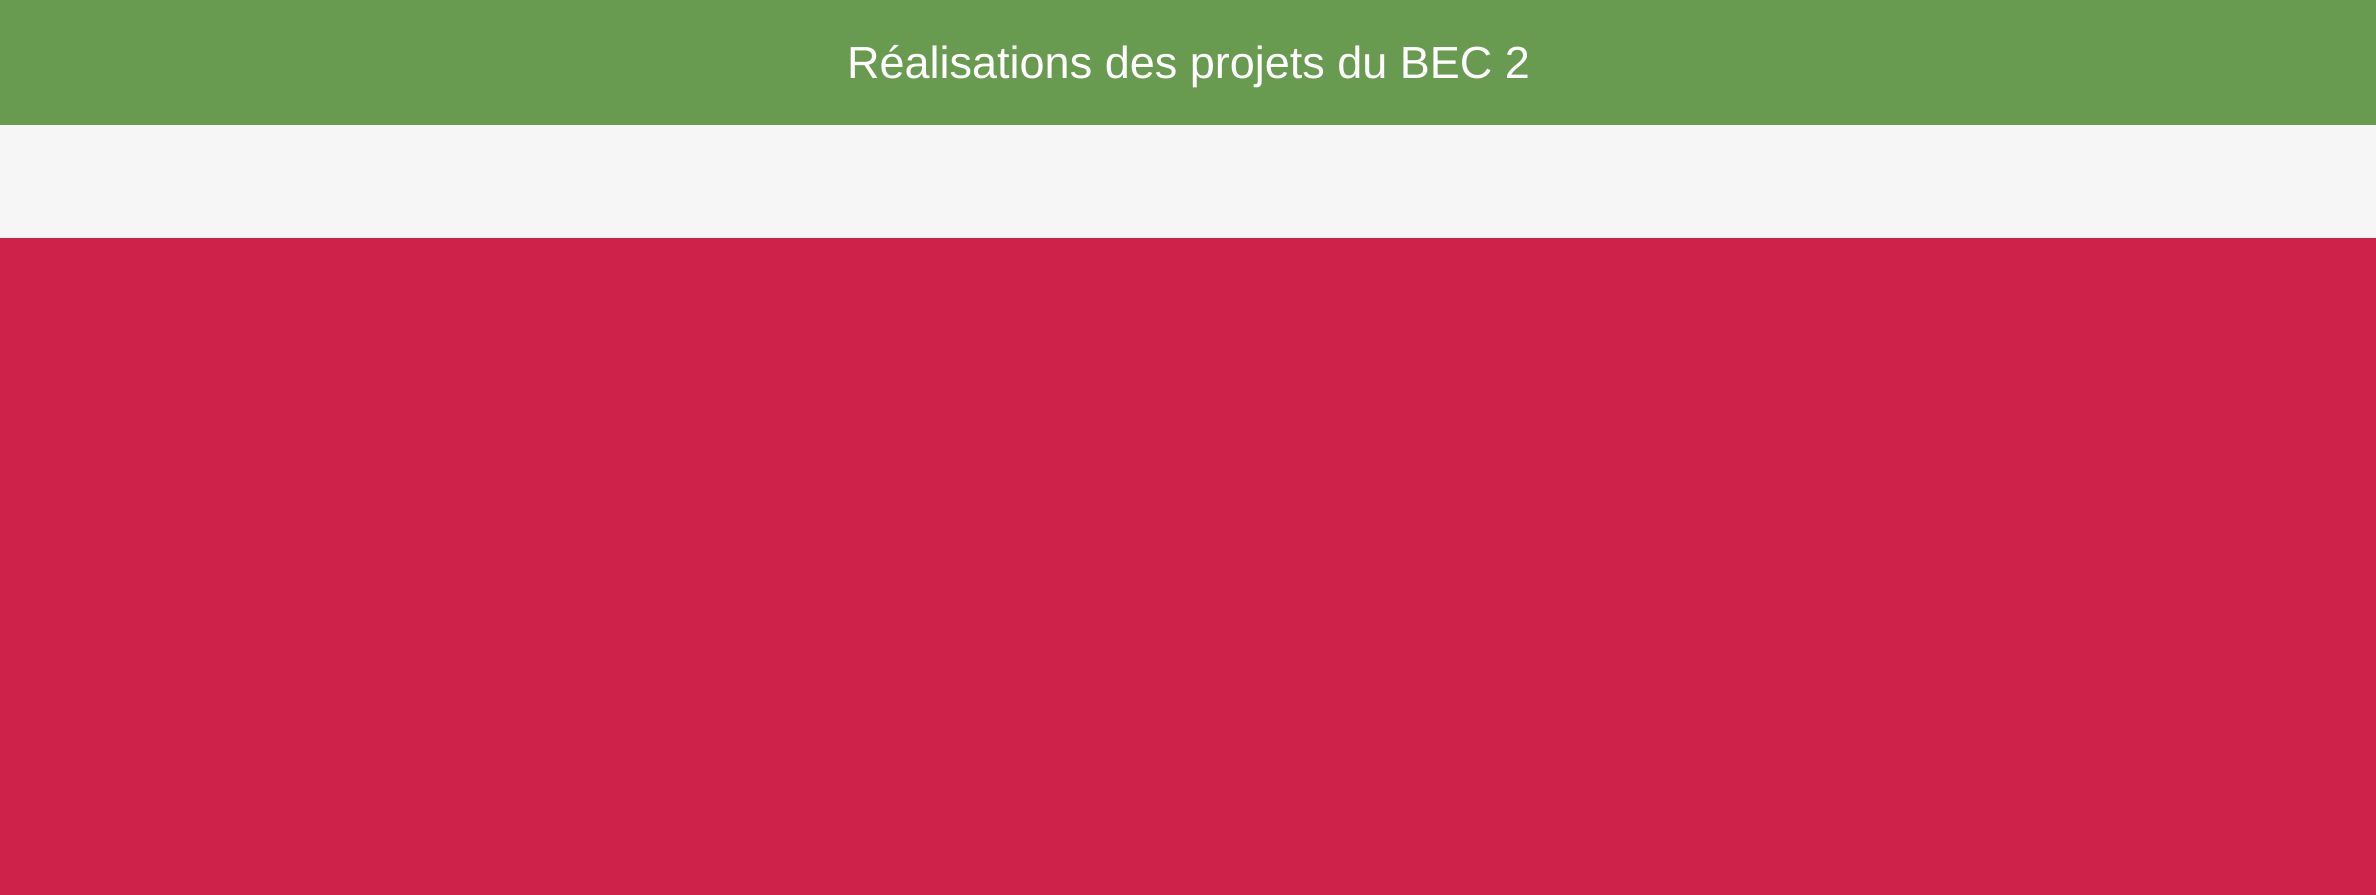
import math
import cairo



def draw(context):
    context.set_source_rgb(206 / 255, 34 / 255, 74 / 255)
    context.paint()
    context.set_source_rgb(104 / 255, 155 / 255, 80 / 255)
    context.rectangle(0, 0, 2376, 125)
    context.fill()
    context.set_source_rgb(246 / 255, 246 / 255, 246 / 255)
    context.rectangle(0, 125, 2376, 113)
    context.fill()
    context.select_font_face("Liberation Sans")
    context.set_font_size(45)
    context.set_source_rgb(1, 1, 1)
    context.move_to(847, 78)
    context.show_text("Réalisations des projets du BEC 2")


surface = cairo.ImageSurface(cairo.Format.RGB24, 2376, 895)
context = cairo.Context(surface)
options = cairo.FontOptions()
options.set_hint_metrics(cairo.HintMetrics.OFF)
options.set_hint_style(cairo.HintStyle.NONE)
context.set_font_options(options)
context.set_miter_limit(4)
draw(context)
surface.write_to_png("out.png")
